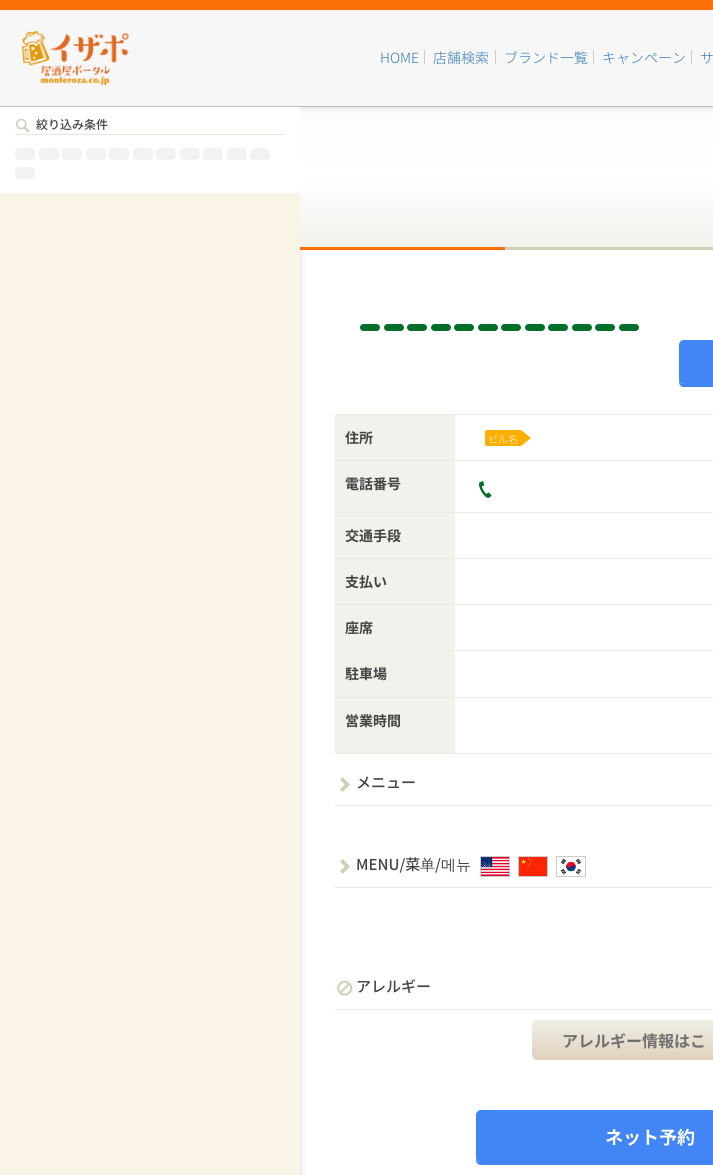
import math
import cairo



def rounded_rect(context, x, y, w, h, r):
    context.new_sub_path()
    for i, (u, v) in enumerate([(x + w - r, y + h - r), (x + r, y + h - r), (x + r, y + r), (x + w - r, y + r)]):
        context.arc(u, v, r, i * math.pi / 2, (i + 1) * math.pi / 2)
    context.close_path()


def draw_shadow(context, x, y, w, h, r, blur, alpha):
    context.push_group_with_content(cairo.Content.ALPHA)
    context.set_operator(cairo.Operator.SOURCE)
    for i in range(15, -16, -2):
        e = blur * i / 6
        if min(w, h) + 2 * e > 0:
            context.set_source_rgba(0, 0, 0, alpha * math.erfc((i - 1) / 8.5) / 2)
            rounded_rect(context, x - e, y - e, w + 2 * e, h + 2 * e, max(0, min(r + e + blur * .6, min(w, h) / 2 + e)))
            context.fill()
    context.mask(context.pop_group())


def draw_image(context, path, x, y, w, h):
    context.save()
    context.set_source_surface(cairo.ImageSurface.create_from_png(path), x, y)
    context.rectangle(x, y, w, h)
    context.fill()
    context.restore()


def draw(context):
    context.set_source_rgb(1, 1, 1)
    context.paint()
    context.set_source_rgb(0, 0, 0)
    draw_shadow(context, 2, 109, 300, 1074, 0, 2.5, 0.1)
    gradient = cairo.LinearGradient(650, 107, 650, 247)
    gradient.add_color_stop_rgba(0, 252 / 255, 252 / 255, 252 / 255, 1)
    gradient.add_color_stop_rgba(0.5, 1, 1, 1, 1)
    gradient.add_color_stop_rgba(1, 241 / 255, 242 / 255, 236 / 255, 1)
    context.set_source(gradient)
    context.rectangle(300, 107, 413, 140)
    context.fill()
    context.set_source_rgb(0, 0, 0)
    draw_shadow(context, 2, 2, 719, 107, 0, 2.5, 0.1)
    context.set_source_rgb(247 / 255, 247 / 255, 247 / 255)
    context.rectangle(1, 10, 712, 96)
    context.fill()
    context.set_source_rgb(252 / 255, 111 / 255, 6 / 255)
    context.rectangle(0, 0, 713, 10)
    context.fill()
    context.set_source_rgb(188 / 255, 188 / 255, 188 / 255)
    context.rectangle(0, 106, 713, 1)
    context.fill()
    draw_image(context, "images/1.png", 21, 31, 108, 55)
    context.set_source_rgb(204 / 255, 204 / 255, 204 / 255)
    context.rectangle(424, 50, 1, 14)
    context.fill()
    context.rectangle(495, 50, 1, 14)
    context.fill()
    context.rectangle(593, 50, 1, 14)
    context.fill()
    context.rectangle(691, 50, 1, 14)
    context.fill()
    context.set_source_rgb(250 / 255, 244 / 255, 230 / 255)
    context.rectangle(0, 193, 300, 982)
    context.fill()
    context.set_source_rgb(1, 1, 1)
    context.rectangle(0, 107, 300, 86)
    context.fill()
    context.set_source_rgb(231 / 255, 231 / 255, 221 / 255)
    context.rectangle(15, 134, 270, 1)
    context.fill()
    draw_image(context, "images/2.png", 16, 118, 14, 15)
    context.set_source_rgb(242 / 255, 242 / 255, 242 / 255)
    rounded_rect(context, 15, 148, 20, 12, 4)
    context.fill()
    rounded_rect(context, 39, 148, 20, 12, 4)
    context.fill()
    rounded_rect(context, 62, 148, 20, 12, 4)
    context.fill()
    rounded_rect(context, 86, 148, 20, 12, 4)
    context.fill()
    rounded_rect(context, 109, 148, 20, 12, 4)
    context.fill()
    rounded_rect(context, 133, 148, 20, 12, 4)
    context.fill()
    rounded_rect(context, 156, 148, 20, 12, 4)
    context.fill()
    rounded_rect(context, 180, 148, 20, 12, 4)
    context.fill()
    rounded_rect(context, 203, 148, 20, 12, 4)
    context.fill()
    rounded_rect(context, 227, 148, 20, 12, 4)
    context.fill()
    rounded_rect(context, 250, 148, 20, 12, 4)
    context.fill()
    rounded_rect(context, 15, 167, 20, 12, 4)
    context.fill()
    context.set_source_rgb(209 / 255, 206 / 255, 187 / 255)
    context.rectangle(505, 247, 208, 3)
    context.fill()
    context.set_source_rgb(252 / 255, 111 / 255, 6 / 255)
    context.rectangle(300, 247, 205, 3)
    context.fill()
    context.set_source_rgb(1 / 255, 110 / 255, 42 / 255)
    rounded_rect(context, 360, 324, 20, 7, 3.5)
    context.fill()
    rounded_rect(context, 384, 324, 20, 7, 3.5)
    context.fill()
    rounded_rect(context, 407, 324, 20, 7, 3.5)
    context.fill()
    rounded_rect(context, 431, 324, 20, 7, 3.5)
    context.fill()
    rounded_rect(context, 454, 324, 20, 7, 3.5)
    context.fill()
    rounded_rect(context, 478, 324, 20, 7, 3.5)
    context.fill()
    rounded_rect(context, 501, 324, 20, 7, 3.5)
    context.fill()
    rounded_rect(context, 525, 324, 20, 7, 3.5)
    context.fill()
    rounded_rect(context, 548, 324, 20, 7, 3.5)
    context.fill()
    rounded_rect(context, 572, 324, 20, 7, 3.5)
    context.fill()
    rounded_rect(context, 595, 324, 20, 7, 3.5)
    context.fill()
    rounded_rect(context, 619, 324, 20, 7, 3.5)
    context.fill()
    context.set_source_rgb(66 / 255, 133 / 255, 244 / 255)
    context.new_path()
    context.move_to(679, 379)
    context.line_to(679, 382)
    context.curve_to(679, 385, 681, 387, 684, 387)
    context.line_to(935, 387)
    context.curve_to(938, 387, 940, 385, 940, 382)
    context.line_to(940, 379)
    context.curve_to(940, 382, 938, 384, 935, 384)
    context.line_to(684, 384)
    context.curve_to(681, 384, 679, 382, 679, 379)
    context.close_path()
    context.fill()
    rounded_rect(context, 679, 340, 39, 44, 5)
    context.fill()
    context.set_source_rgb(235 / 255, 234 / 255, 229 / 255)
    context.rectangle(335, 414, 378, 1)
    context.fill()
    context.rectangle(335, 460, 378, 1)
    context.fill()
    context.set_source_rgb(242 / 255, 241 / 255, 236 / 255)
    context.rectangle(335, 415, 120, 45)
    context.fill()
    context.set_source_rgb(1, 175 / 255, 0)
    context.new_path()
    context.move_to(487, 430)
    context.line_to(521, 430)
    context.line_to(521, 446)
    context.line_to(487, 446)
    context.curve_to(486, 446, 485, 445, 485, 444)
    context.line_to(485, 432)
    context.curve_to(485, 431, 486, 430, 487, 430)
    context.close_path()
    context.fill()
    context.new_path()
    context.move_to(521, 446)
    context.line_to(521, 430)
    context.line_to(531, 438)
    context.close_path()
    context.fill()
    context.set_source_rgb(235 / 255, 234 / 255, 229 / 255)
    context.rectangle(335, 512, 378, 1)
    context.fill()
    context.set_source_rgb(242 / 255, 241 / 255, 236 / 255)
    context.rectangle(335, 461, 120, 51)
    context.fill()
    draw_image(context, "images/3.png", 479, 481, 13, 17)
    context.set_source_rgb(235 / 255, 234 / 255, 229 / 255)
    context.rectangle(335, 558, 378, 1)
    context.fill()
    context.set_source_rgb(242 / 255, 241 / 255, 236 / 255)
    context.rectangle(335, 513, 120, 45)
    context.fill()
    context.set_source_rgb(235 / 255, 234 / 255, 229 / 255)
    context.rectangle(335, 604, 378, 1)
    context.fill()
    context.set_source_rgb(242 / 255, 241 / 255, 236 / 255)
    context.rectangle(335, 559, 120, 45)
    context.fill()
    context.set_source_rgb(235 / 255, 234 / 255, 229 / 255)
    context.rectangle(335, 650, 378, 1)
    context.fill()
    context.set_source_rgb(242 / 255, 241 / 255, 236 / 255)
    context.rectangle(335, 605, 120, 45)
    context.fill()
    context.set_source_rgb(235 / 255, 234 / 255, 229 / 255)
    context.rectangle(335, 697, 378, 1)
    context.fill()
    context.set_source_rgb(242 / 255, 241 / 255, 236 / 255)
    context.rectangle(335, 651, 120, 46)
    context.fill()
    context.set_source_rgb(235 / 255, 234 / 255, 229 / 255)
    context.rectangle(335, 753, 378, 1)
    context.fill()
    context.set_source_rgb(242 / 255, 241 / 255, 236 / 255)
    context.rectangle(335, 698, 120, 55)
    context.fill()
    context.set_source_rgb(234 / 255, 233 / 255, 228 / 255)
    context.rectangle(335, 805, 378, 1)
    context.fill()
    draw_image(context, "images/4.png", 340, 777, 10, 15)
    context.rectangle(335, 887, 378, 1)
    context.fill()
    draw_image(context, "images/4.png", 340, 859, 10, 15)
    context.rectangle(480.5, 856.5, 29, 20)
    context.set_source_rgb(204 / 255, 204 / 255, 204 / 255)
    context.set_line_width(1)
    context.stroke()
    draw_image(context, "images/5.png", 481, 857, 28, 19)
    context.rectangle(518.5, 856.5, 29, 20)
    context.stroke()
    draw_image(context, "images/6.png", 519, 857, 28, 19)
    context.rectangle(556.5, 856.5, 29, 20)
    context.stroke()
    draw_image(context, "images/7.png", 561, 858, 21, 17)
    context.set_source_rgb(234 / 255, 233 / 255, 228 / 255)
    context.rectangle(335, 1009, 378, 1)
    context.fill()
    draw_image(context, "images/8.png", 335, 979, 18, 17)
    gradient = cairo.LinearGradient(650, 1020, 650, 1060)
    gradient.add_color_stop_rgba(0, 239 / 255, 239 / 255, 231 / 255, 1)
    gradient.add_color_stop_rgba(1, 224 / 255, 209 / 255, 188 / 255, 1)
    context.set_source(gradient)
    rounded_rect(context, 532, 1020, 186, 40, 5)
    context.fill()
    context.set_source_rgb(66 / 255, 133 / 255, 244 / 255)
    context.new_path()
    context.move_to(476, 1157)
    context.line_to(476, 1160)
    context.curve_to(476, 1163, 478, 1165, 481, 1165)
    context.line_to(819, 1165)
    context.curve_to(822, 1165, 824, 1163, 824, 1160)
    context.line_to(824, 1157)
    context.curve_to(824, 1160, 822, 1162, 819, 1162)
    context.line_to(481, 1162)
    context.curve_to(478, 1162, 476, 1160, 476, 1157)
    context.close_path()
    context.fill()
    rounded_rect(context, 476, 1110, 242, 52, 5)
    context.fill()
    context.select_font_face("Noto Sans JP Light")
    context.set_font_size(14)
    context.set_source_rgb(51 / 255, 122 / 255, 183 / 255)
    context.move_to(380, 63)
    context.show_text("HOME")
    context.move_to(433, 63)
    context.show_text("店舗検索")
    context.move_to(504, 63)
    context.show_text("ブランド一覧")
    context.move_to(602, 63)
    context.show_text("キャンペーン")
    context.move_to(700, 63)
    context.show_text("サ")
    context.select_font_face("Noto Sans JP Medium")
    context.set_font_size(12)
    context.set_source_rgb(68 / 255, 68 / 255, 68 / 255)
    context.move_to(36, 129)
    context.show_text("絞り込み条件")
    context.select_font_face("Noto Sans JP", cairo.FontSlant.NORMAL, cairo.FontWeight.BOLD)
    context.set_font_size(14)
    context.move_to(345, 443)
    context.show_text("住所")
    context.select_font_face("Noto Sans JP Light")
    context.set_font_size(10)
    context.set_source_rgb(1, 1, 1)
    context.move_to(488, 443)
    context.show_text("ビル名")
    context.select_font_face("Noto Sans JP", cairo.FontSlant.NORMAL, cairo.FontWeight.BOLD)
    context.set_font_size(14)
    context.set_source_rgb(68 / 255, 68 / 255, 68 / 255)
    context.move_to(345, 489)
    context.show_text("電話番号")
    context.move_to(345, 541)
    context.show_text("交通手段")
    context.move_to(345, 587)
    context.show_text("支払い")
    context.move_to(345, 633)
    context.show_text("座席")
    context.move_to(345, 679)
    context.show_text("駐車場")
    context.move_to(345, 726)
    context.show_text("営業時間")
    context.select_font_face("Noto Sans JP Medium")
    context.set_font_size(15)
    context.move_to(356, 788)
    context.show_text("メニュー")
    context.move_to(356, 870)
    context.show_text("MENU/菜")
    context.select_font_face("WenQuanYi Zen Hei Medium")
    context.move_to(420, 870)
    context.show_text("单")
    context.select_font_face("Noto Sans JP Medium")
    context.move_to(435, 870)
    context.show_text("/")
    context.select_font_face("WenQuanYi Zen Hei Medium")
    context.move_to(441, 870)
    context.show_text("메뉴")
    context.select_font_face("Noto Sans JP Medium")
    context.move_to(356, 992)
    context.show_text("アレルギー")
    context.select_font_face("Noto Sans JP", cairo.FontSlant.NORMAL, cairo.FontWeight.BOLD)
    context.set_font_size(16)
    context.set_source_rgb(113 / 255, 111 / 255, 112 / 255)
    context.move_to(562, 1047)
    context.show_text("アレルギー情報はこ")
    context.set_font_size(18)
    context.set_source_rgb(1, 1, 1)
    context.move_to(605, 1144)
    context.show_text("ネット予約")


surface = cairo.ImageSurface(cairo.Format.RGB24, 713, 1175)
context = cairo.Context(surface)
options = cairo.FontOptions()
options.set_hint_metrics(cairo.HintMetrics.OFF)
options.set_hint_style(cairo.HintStyle.NONE)
context.set_font_options(options)
context.set_miter_limit(4)
draw(context)
surface.write_to_png("out.png")
